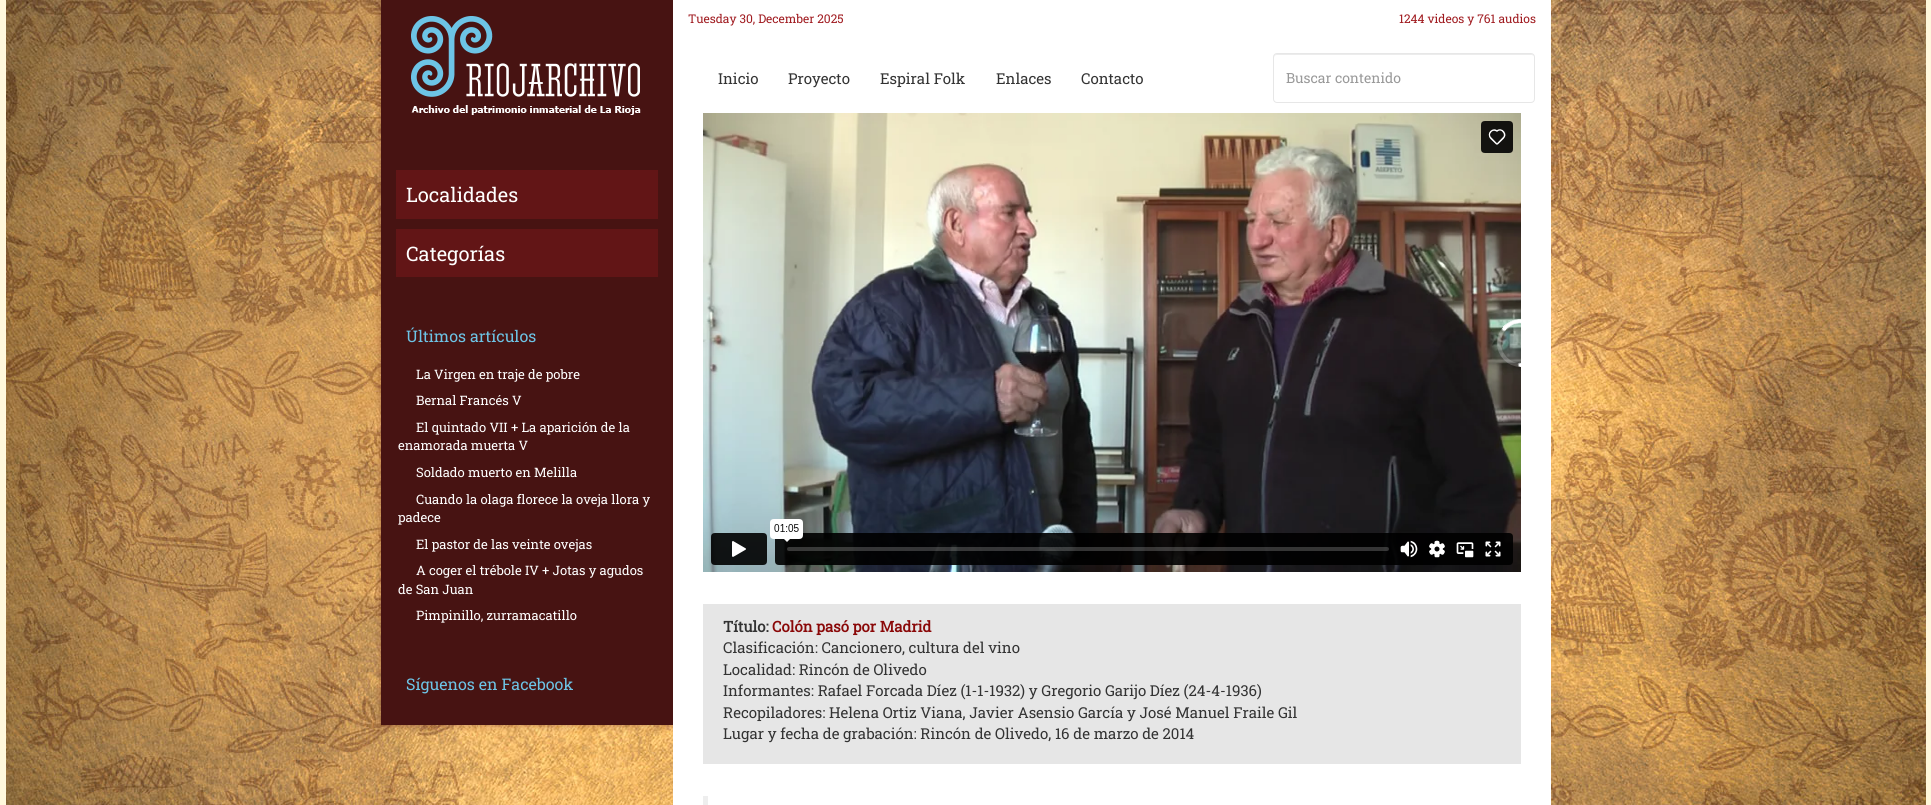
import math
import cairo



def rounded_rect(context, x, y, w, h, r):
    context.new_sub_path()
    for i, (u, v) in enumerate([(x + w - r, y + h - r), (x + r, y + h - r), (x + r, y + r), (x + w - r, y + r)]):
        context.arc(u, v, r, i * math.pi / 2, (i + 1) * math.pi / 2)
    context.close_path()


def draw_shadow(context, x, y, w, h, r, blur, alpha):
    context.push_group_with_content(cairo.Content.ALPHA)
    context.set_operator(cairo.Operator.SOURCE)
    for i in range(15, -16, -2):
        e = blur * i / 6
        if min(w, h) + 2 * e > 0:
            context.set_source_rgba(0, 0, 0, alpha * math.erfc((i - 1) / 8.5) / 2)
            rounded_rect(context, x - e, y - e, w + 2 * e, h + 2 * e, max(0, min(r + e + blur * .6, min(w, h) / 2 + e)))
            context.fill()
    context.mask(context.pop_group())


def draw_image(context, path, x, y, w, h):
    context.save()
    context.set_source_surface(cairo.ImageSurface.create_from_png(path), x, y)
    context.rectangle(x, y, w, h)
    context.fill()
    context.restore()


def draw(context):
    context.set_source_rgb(1, 248 / 255, 220 / 255)
    context.paint()
    draw_image(context, "images/1.png", 6, 0, 1920, 805)
    context.set_source_rgb(81 / 255, 12 / 255, 15 / 255)
    draw_shadow(context, 381, 0, 292, 725, 0, 4, 0.4)
    context.set_source_rgb(71 / 255, 19 / 255, 18 / 255)
    context.rectangle(381, 0, 292, 725)
    context.fill()
    draw_image(context, "images/2.png", 411, 16, 230, 99)
    context.set_source_rgb(98 / 255, 21 / 255, 22 / 255)
    context.rectangle(396, 170, 262, 49)
    context.fill()
    context.rectangle(396, 229, 262, 48)
    context.fill()
    context.set_source_rgb(1, 1, 1)
    context.rectangle(673, 0, 878, 805)
    context.fill()
    context.set_source_rgb(236 / 255, 236 / 255, 236 / 255)
    context.new_path()
    context.move_to(1277, 55)
    context.line_to(1532, 55)
    context.line_to(1534, 56)
    context.line_to(1534, 58)
    context.line_to(1534, 57)
    context.curve_to(1534, 55, 1533, 54, 1531, 54)
    context.line_to(1277, 54)
    context.curve_to(1275, 54, 1274, 55, 1274, 57)
    context.line_to(1274, 58)
    context.curve_to(1274, 56, 1275, 55, 1277, 55)
    context.close_path()
    context.fill()
    rounded_rect(context, 1273.5, 53.5, 261, 49, 3.5)
    context.set_source_rgb(231 / 255, 231 / 255, 231 / 255)
    context.set_line_width(1)
    context.stroke()
    draw_image(context, "images/3.png", 703, 113, 818, 459)
    context.set_source_rgb(230 / 255, 230 / 255, 230 / 255)
    context.rectangle(703, 604, 818, 160)
    context.fill()
    context.set_source_rgb(238 / 255, 238 / 255, 238 / 255)
    context.rectangle(703, 796, 5, 9)
    context.fill()
    context.select_font_face("Roboto Slab")
    context.set_font_size(20)
    context.set_source_rgb(1, 1, 1)
    context.move_to(406, 202)
    context.show_text("Localidades")
    context.move_to(406, 261)
    context.show_text("Categorías")
    context.set_font_size(16)
    context.set_source_rgb(109 / 255, 196 / 255, 230 / 255)
    context.move_to(406, 342)
    context.show_text("Últimos artículos")
    context.set_font_size(13)
    context.set_source_rgb(1, 1, 1)
    context.move_to(416, 379)
    context.show_text("La Virgen en traje de pobre")
    context.move_to(416, 405)
    context.show_text("Bernal Francés V")
    context.move_to(416, 432)
    context.show_text("El quintado VII + La aparición de la")
    context.move_to(398, 450)
    context.show_text("enamorada muerta V")
    context.move_to(416, 477)
    context.show_text("Soldado muerto en Melilla")
    context.move_to(416, 504)
    context.show_text("Cuando la olaga florece la oveja llora y")
    context.move_to(398, 522)
    context.show_text("padece")
    context.move_to(416, 549)
    context.show_text("El pastor de las veinte ovejas")
    context.move_to(416, 575)
    context.show_text("A coger el trébole IV + Jotas y agudos")
    context.move_to(398, 594)
    context.show_text("de San Juan")
    context.move_to(416, 620)
    context.show_text("Pimpinillo, zurramacatillo")
    context.set_font_size(16)
    context.set_source_rgb(109 / 255, 196 / 255, 230 / 255)
    context.move_to(406, 690)
    context.show_text("Síguenos en Facebook")
    context.set_font_size(12)
    context.set_source_rgb(160 / 255, 27 / 255, 32 / 255)
    context.move_to(688, 23)
    context.show_text("Tuesday 30, December 2025")
    context.move_to(1399, 23)
    context.show_text("1244 videos y 761 audios")
    context.set_font_size(15)
    context.set_source_rgb(51 / 255, 51 / 255, 51 / 255)
    context.move_to(718, 84)
    context.show_text("Inicio")
    context.move_to(788, 84)
    context.show_text("Proyecto")
    context.move_to(880, 84)
    context.show_text("Espiral Folk")
    context.move_to(996, 84)
    context.show_text("Enlaces")
    context.move_to(1081, 84)
    context.show_text("Contacto")
    context.set_font_size(14)
    context.set_source_rgb(153 / 255, 153 / 255, 153 / 255)
    context.move_to(1286, 83)
    context.show_text("Buscar contenido")
    context.select_font_face("Roboto Slab", cairo.FontSlant.NORMAL, cairo.FontWeight.BOLD)
    context.set_font_size(15)
    context.set_source_rgb(51 / 255, 51 / 255, 51 / 255)
    context.move_to(723, 632)
    context.show_text("Título:")
    context.set_source_rgb(138 / 255, 8 / 255, 8 / 255)
    context.move_to(772, 632)
    context.show_text("Colón pasó por Madrid")
    context.select_font_face("Roboto Slab")
    context.set_source_rgb(51 / 255, 51 / 255, 51 / 255)
    context.move_to(723, 653)
    context.show_text("Clasificación: Cancionero, cultura del vino")
    context.move_to(723, 675)
    context.show_text("Localidad: Rincón de Olivedo")
    context.move_to(723, 696)
    context.show_text("Informantes: Rafael Forcada Díez (1-1-1932) y Gregorio Garijo Díez (24-4-1936)")
    context.move_to(723, 718)
    context.show_text("Recopiladores: Helena Ortiz Viana, Javier Asensio García y José Manuel Fraile Gil")
    context.move_to(723, 739)
    context.show_text("Lugar y fecha de grabación: Rincón de Olivedo, 16 de marzo de 2014")


surface = cairo.ImageSurface(cairo.Format.RGB24, 1931, 805)
context = cairo.Context(surface)
options = cairo.FontOptions()
options.set_hint_metrics(cairo.HintMetrics.OFF)
options.set_hint_style(cairo.HintStyle.NONE)
context.set_font_options(options)
context.set_miter_limit(4)
draw(context)
surface.write_to_png("out.png")
